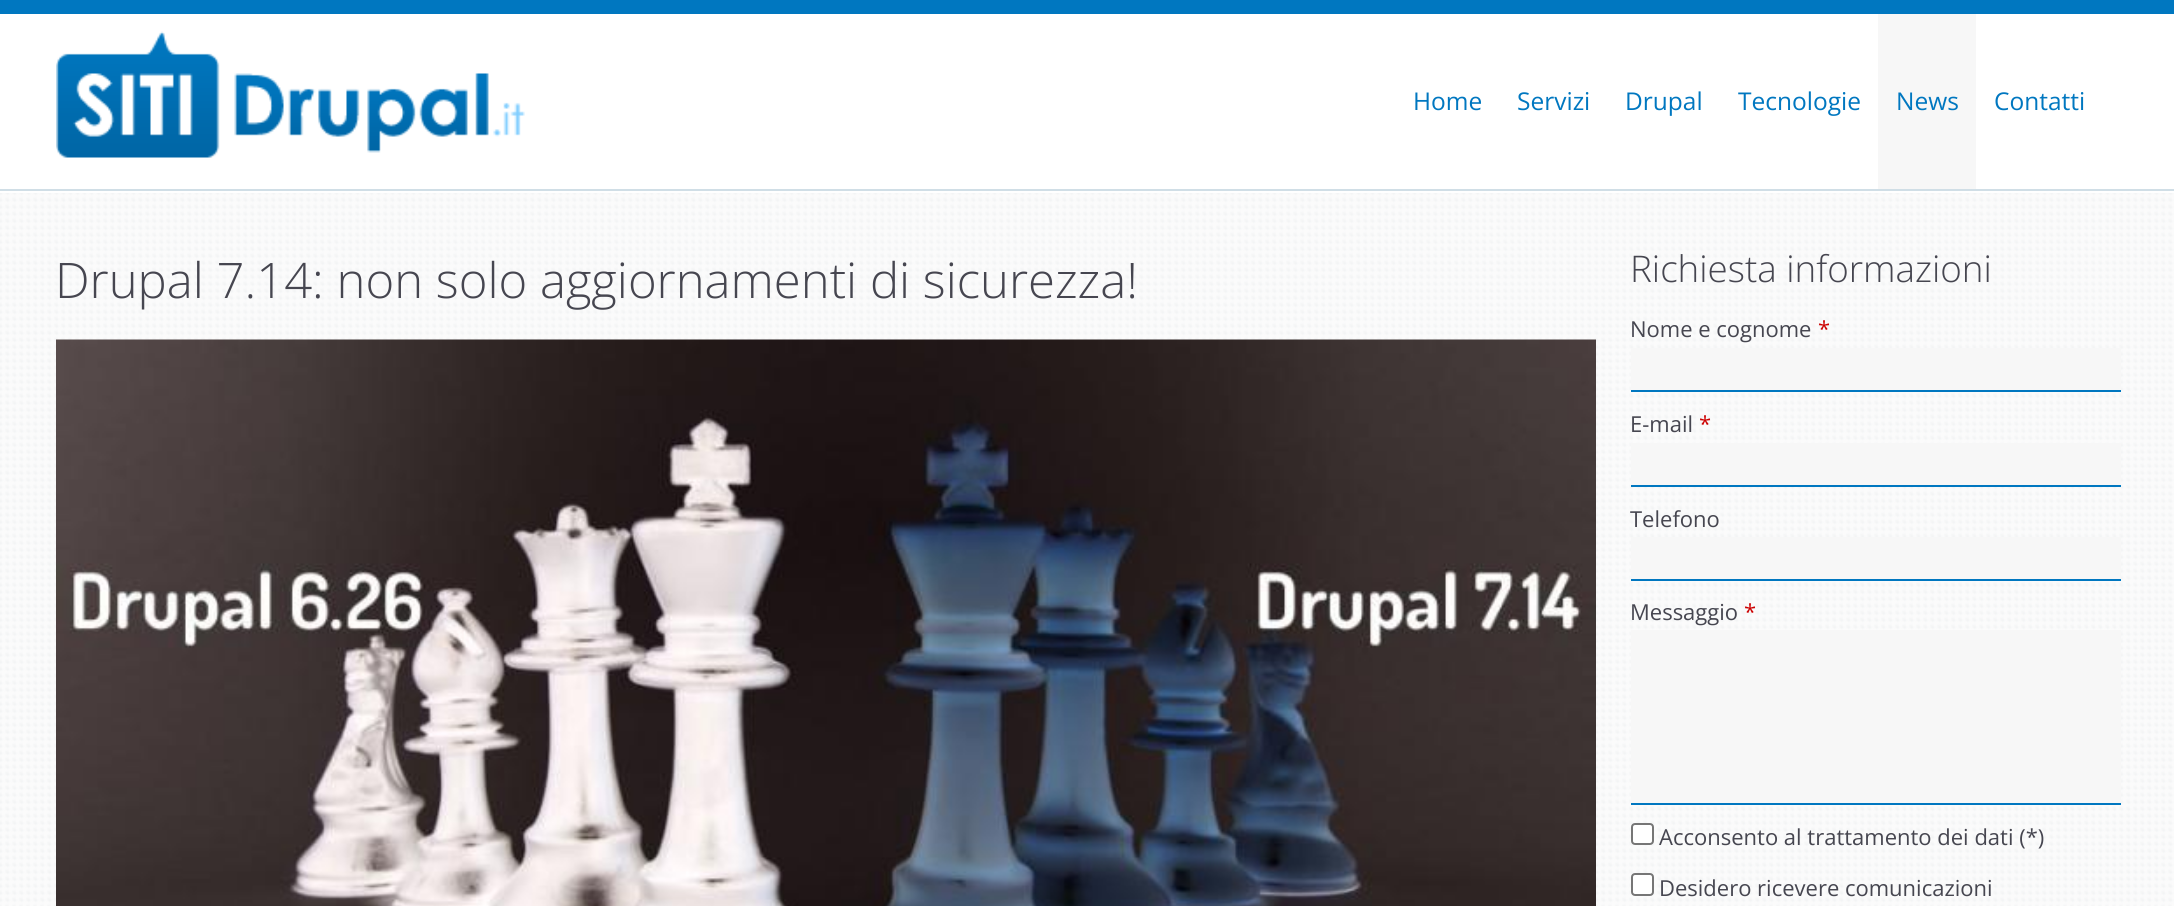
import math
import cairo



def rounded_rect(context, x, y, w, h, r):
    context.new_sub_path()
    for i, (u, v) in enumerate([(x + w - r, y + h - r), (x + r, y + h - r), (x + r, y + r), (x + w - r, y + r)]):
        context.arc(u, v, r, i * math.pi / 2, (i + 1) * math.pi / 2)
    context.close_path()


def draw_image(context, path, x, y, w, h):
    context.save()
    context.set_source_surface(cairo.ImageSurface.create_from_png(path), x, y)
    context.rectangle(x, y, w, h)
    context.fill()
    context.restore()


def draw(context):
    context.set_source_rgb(1, 1, 1)
    context.paint()
    context.set_source_rgb(0, 119 / 255, 192 / 255)
    context.rectangle(0, 0, 2174, 14)
    context.fill()
    context.set_source_rgb(208 / 255, 222 / 255, 230 / 255)
    context.rectangle(0, 189, 2174, 2)
    context.fill()
    draw_image(context, "images/1.png", 56, 31, 469, 127)
    context.set_source_rgb(247 / 255, 247 / 255, 247 / 255)
    context.rectangle(1878, 14, 98, 175)
    context.fill()
    draw_image(context, "images/2.png", 0, 193, 2174, 713)
    draw_image(context, "images/3.png", 56, 339, 1540, 567)
    context.rectangle(1631, 348, 490, 42)
    context.fill()
    context.set_source_rgb(0, 119 / 255, 192 / 255)
    context.rectangle(1631, 390, 490, 2)
    context.fill()
    context.set_source_rgb(247 / 255, 247 / 255, 247 / 255)
    context.rectangle(1631, 443, 490, 42)
    context.fill()
    context.set_source_rgb(0, 119 / 255, 192 / 255)
    context.rectangle(1631, 485, 490, 2)
    context.fill()
    context.set_source_rgb(247 / 255, 247 / 255, 247 / 255)
    context.rectangle(1631, 537, 490, 42)
    context.fill()
    context.set_source_rgb(0, 119 / 255, 192 / 255)
    context.rectangle(1631, 579, 490, 2)
    context.fill()
    context.set_source_rgb(247 / 255, 247 / 255, 247 / 255)
    context.rectangle(1631, 630, 490, 173)
    context.fill()
    context.set_source_rgb(0, 119 / 255, 192 / 255)
    context.rectangle(1631, 803, 490, 2)
    context.fill()
    context.set_source_rgb(1, 1, 1)
    rounded_rect(context, 1632, 824, 21, 20, 3)
    context.fill_preserve()
    context.set_source_rgb(118 / 255, 118 / 255, 118 / 255)
    context.stroke()
    context.set_source_rgb(1, 1, 1)
    rounded_rect(context, 1632, 874, 21, 21, 3)
    context.fill_preserve()
    context.set_source_rgb(118 / 255, 118 / 255, 118 / 255)
    context.stroke()
    context.select_font_face("Open Sans")
    context.set_font_size(24.5)
    context.set_source_rgb(0, 119 / 255, 192 / 255)
    context.move_to(1413, 110)
    context.show_text("Home")
    context.move_to(1517, 110)
    context.show_text("Servizi")
    context.move_to(1625, 110)
    context.show_text("Drupal")
    context.move_to(1738, 110)
    context.show_text("Tecnologie")
    context.move_to(1896, 110)
    context.show_text("News")
    context.move_to(1994, 110)
    context.show_text("Contatti")
    context.select_font_face("Open Sans Light")
    context.set_font_size(49)
    context.set_source_rgb(70 / 255, 70 / 255, 80 / 255)
    context.move_to(55, 298)
    context.show_text("Drupal 7.14: non solo aggiornamenti di sicurezza!")
    context.set_font_size(36.75)
    context.move_to(1630, 282)
    context.show_text("Richiesta informazioni")
    context.select_font_face("Open Sans")
    context.set_font_size(22)
    context.move_to(1630, 337)
    context.show_text("Nome e cognome")
    context.set_source_rgb(204 / 255, 0, 0)
    context.move_to(1818, 337)
    context.show_text("*")
    context.set_source_rgb(70 / 255, 70 / 255, 80 / 255)
    context.move_to(1630, 432)
    context.show_text("E-mail")
    context.set_source_rgb(204 / 255, 0, 0)
    context.move_to(1699, 432)
    context.show_text("*")
    context.set_source_rgb(70 / 255, 70 / 255, 80 / 255)
    context.move_to(1630, 527)
    context.show_text("Telefono")
    context.move_to(1630, 620)
    context.show_text("Messaggio")
    context.set_source_rgb(204 / 255, 0, 0)
    context.move_to(1744, 620)
    context.show_text("*")
    context.set_source_rgb(70 / 255, 70 / 255, 80 / 255)
    context.move_to(1659, 845)
    context.show_text("Acconsento al trattamento dei dati (*)")
    context.move_to(1659, 896)
    context.show_text("Desidero ricevere comunicazioni")


surface = cairo.ImageSurface(cairo.Format.RGB24, 2174, 906)
context = cairo.Context(surface)
options = cairo.FontOptions()
options.set_hint_metrics(cairo.HintMetrics.OFF)
options.set_hint_style(cairo.HintStyle.NONE)
context.set_font_options(options)
context.set_miter_limit(4)
draw(context)
surface.write_to_png("out.png")
